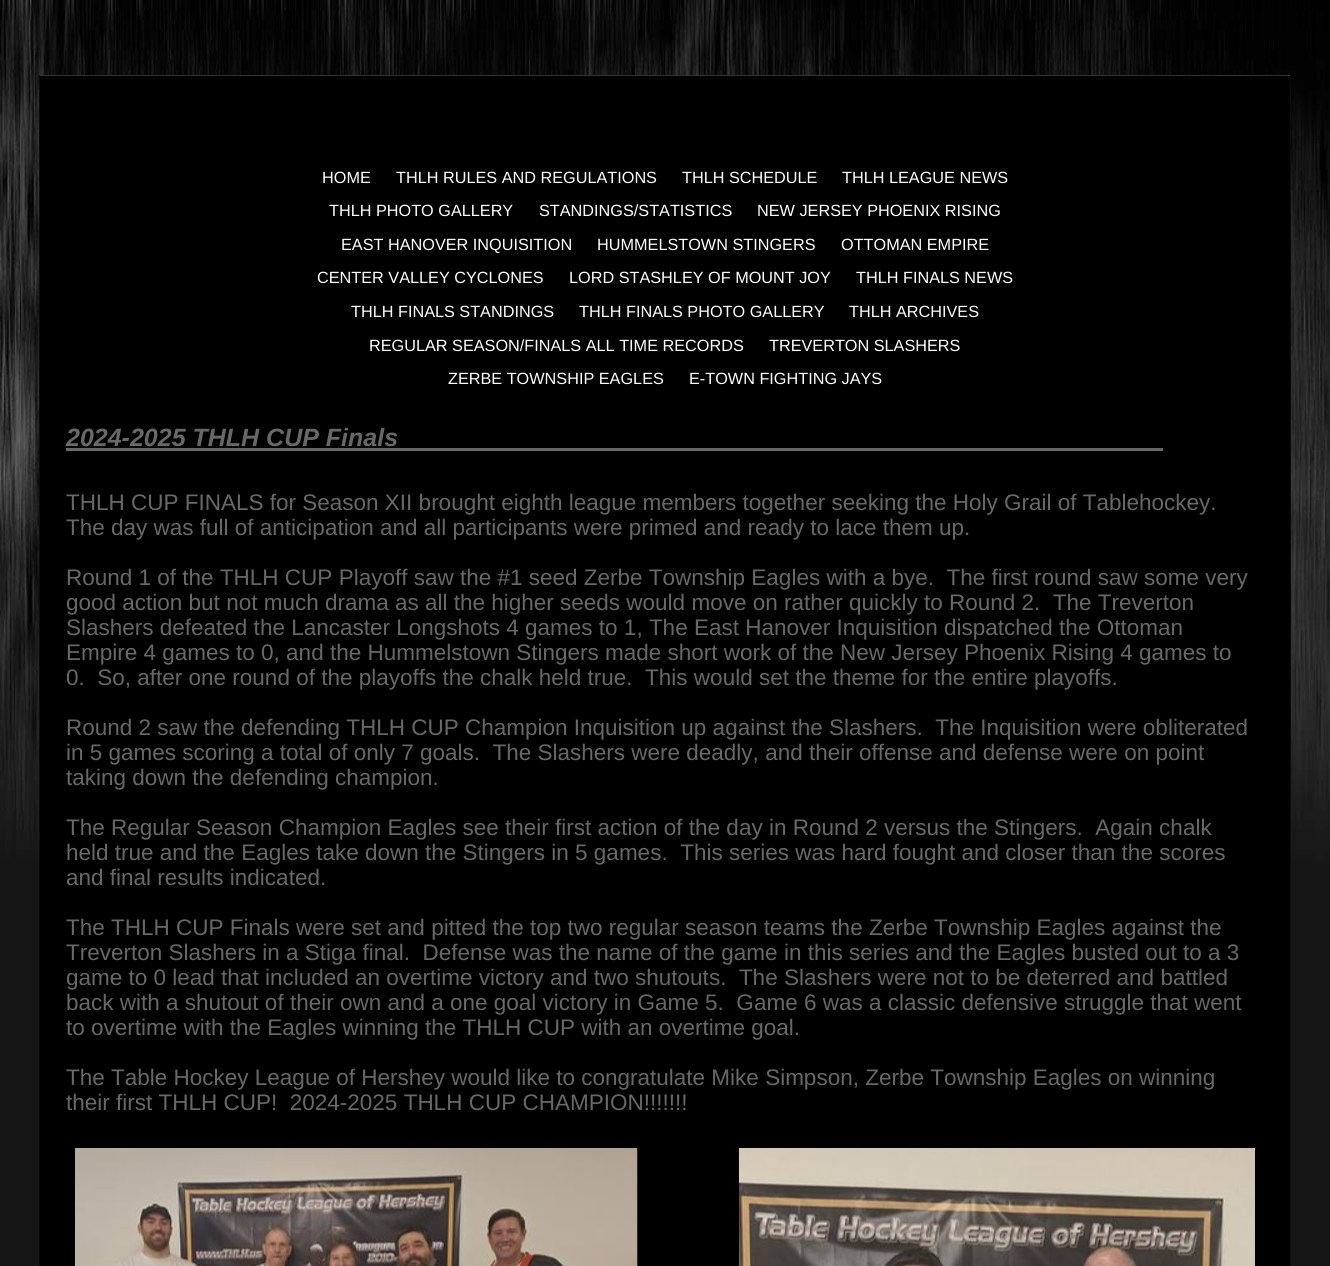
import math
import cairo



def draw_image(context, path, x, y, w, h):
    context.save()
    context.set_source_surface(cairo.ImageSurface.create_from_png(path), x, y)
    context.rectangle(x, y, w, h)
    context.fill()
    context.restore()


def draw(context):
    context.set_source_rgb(22 / 255, 22 / 255, 22 / 255)
    context.paint()
    draw_image(context, "images/1.png", 0, 0, 1330, 860)
    context.set_source_rgb(0, 0, 0)
    context.rectangle(40, 76, 1250, 1190)
    context.fill()
    context.set_source_rgb(49 / 255, 49 / 255, 49 / 255)
    context.rectangle(39, 75, 1252, 1)
    context.fill()
    context.set_source_rgb(12 / 255, 12 / 255, 12 / 255)
    context.rectangle(1290, 75, 1, 1191)
    context.fill()
    context.rectangle(39, 75, 1, 1191)
    context.fill()
    context.set_source_rgb(104 / 255, 104 / 255, 104 / 255)
    context.rectangle(66, 448, 1097, 3)
    context.fill()
    draw_image(context, "images/2.png", 75, 1148, 563, 118)
    draw_image(context, "images/3.png", 738, 1148, 517, 118)
    context.select_font_face("Liberation Sans")
    context.set_font_size(16.25)
    context.set_source_rgb(1, 1, 1)
    context.move_to(322, 183)
    context.show_text("HOME")
    context.move_to(396, 183)
    context.show_text("THLH RULES AND REGULATIONS")
    context.move_to(682, 183)
    context.show_text("THLH SCHEDULE")
    context.move_to(842, 183)
    context.show_text("THLH LEAGUE NEWS")
    context.move_to(329, 216)
    context.show_text("THLH PHOTO GALLERY")
    context.move_to(539, 216)
    context.show_text("STANDINGS/STATISTICS")
    context.move_to(757, 216)
    context.show_text("NEW JERSEY PHOENIX RISING")
    context.move_to(341, 250)
    context.show_text("EAST HANOVER INQUISITION")
    context.move_to(597, 250)
    context.show_text("HUMMELSTOWN STINGERS")
    context.move_to(841, 250)
    context.show_text("OTTOMAN EMPIRE")
    context.move_to(317, 283)
    context.show_text("CENTER VALLEY CYCLONES")
    context.move_to(569, 283)
    context.show_text("LORD STASHLEY OF MOUNT JOY")
    context.move_to(856, 283)
    context.show_text("THLH FINALS NEWS")
    context.move_to(351, 317)
    context.show_text("THLH FINALS STANDINGS")
    context.move_to(579, 317)
    context.show_text("THLH FINALS PHOTO GALLERY")
    context.move_to(849, 317)
    context.show_text("THLH ARCHIVES")
    context.move_to(369, 351)
    context.show_text("REGULAR SEASON/FINALS ALL TIME RECORDS")
    context.move_to(769, 351)
    context.show_text("TREVERTON SLASHERS")
    context.move_to(448, 384)
    context.show_text("ZERBE TOWNSHIP EAGLES")
    context.move_to(689, 384)
    context.show_text("E-TOWN FIGHTING JAYS")
    context.select_font_face("Liberation Sans", cairo.FontSlant.ITALIC, cairo.FontWeight.BOLD)
    context.set_font_size(25)
    context.set_source_rgb(104 / 255, 104 / 255, 104 / 255)
    context.move_to(66, 446)
    context.show_text("2024-2025 THLH CUP Finals")
    context.select_font_face("Liberation Sans")
    context.set_font_size(22.5)
    context.move_to(66, 510)
    context.show_text("THLH CUP FINALS for Season XII brought eighth league members together seeking the Holy Grail of Tablehockey.")
    context.move_to(66, 535)
    context.show_text("The day was full of anticipation and all participants were primed and ready to lace them up.")
    context.move_to(66, 585)
    context.show_text("Round 1 of the THLH CUP Playoff saw the #1 seed Zerbe Township Eagles with a bye.  The first round saw some very")
    context.move_to(66, 610)
    context.show_text("good action but not much drama as all the higher seeds would move on rather quickly to Round 2.  The Treverton")
    context.move_to(66, 635)
    context.show_text("Slashers defeated the Lancaster Longshots 4 games to 1, The East Hanover Inquisition dispatched the Ottoman")
    context.move_to(66, 660)
    context.show_text("Empire 4 games to 0, and the Hummelstown Stingers made short work of the New Jersey Phoenix Rising 4 games to")
    context.move_to(66, 685)
    context.show_text("0.  So, after one round of the playoffs the chalk held true.  This would set the theme for the entire playoffs.")
    context.move_to(66, 735)
    context.show_text("Round 2 saw the defending THLH CUP Champion Inquisition up against the Slashers.  The Inquisition were obliterated")
    context.move_to(66, 760)
    context.show_text("in 5 games scoring a total of only 7 goals.  The Slashers were deadly, and their offense and defense were on point")
    context.move_to(66, 785)
    context.show_text("taking down the defending champion.")
    context.move_to(66, 835)
    context.show_text("The Regular Season Champion Eagles see their first action of the day in Round 2 versus the Stingers.  Again chalk")
    context.move_to(66, 860)
    context.show_text("held true and the Eagles take down the Stingers in 5 games.  This series was hard fought and closer than the scores")
    context.move_to(66, 885)
    context.show_text("and final results indicated.")
    context.move_to(66, 935)
    context.show_text("The THLH CUP Finals were set and pitted the top two regular season teams the Zerbe Township Eagles against the")
    context.move_to(66, 960)
    context.show_text("Treverton Slashers in a Stiga final.  Defense was the name of the game in this series and the Eagles busted out to a 3")
    context.move_to(66, 985)
    context.show_text("game to 0 lead that included an overtime victory and two shutouts.  The Slashers were not to be deterred and battled")
    context.move_to(66, 1010)
    context.show_text("back with a shutout of their own and a one goal victory in Game 5.  Game 6 was a classic defensive struggle that went")
    context.move_to(66, 1035)
    context.show_text("to overtime with the Eagles winning the THLH CUP with an overtime goal.")
    context.move_to(66, 1085)
    context.show_text("The Table Hockey League of Hershey would like to congratulate Mike Simpson, Zerbe Township Eagles on winning")
    context.move_to(66, 1110)
    context.show_text("their first THLH CUP!  2024-2025 THLH CUP CHAMPION!!!!!!!")


surface = cairo.ImageSurface(cairo.Format.RGB24, 1330, 1266)
context = cairo.Context(surface)
options = cairo.FontOptions()
options.set_hint_metrics(cairo.HintMetrics.OFF)
options.set_hint_style(cairo.HintStyle.NONE)
context.set_font_options(options)
context.set_miter_limit(4)
draw(context)
surface.write_to_png("out.png")
